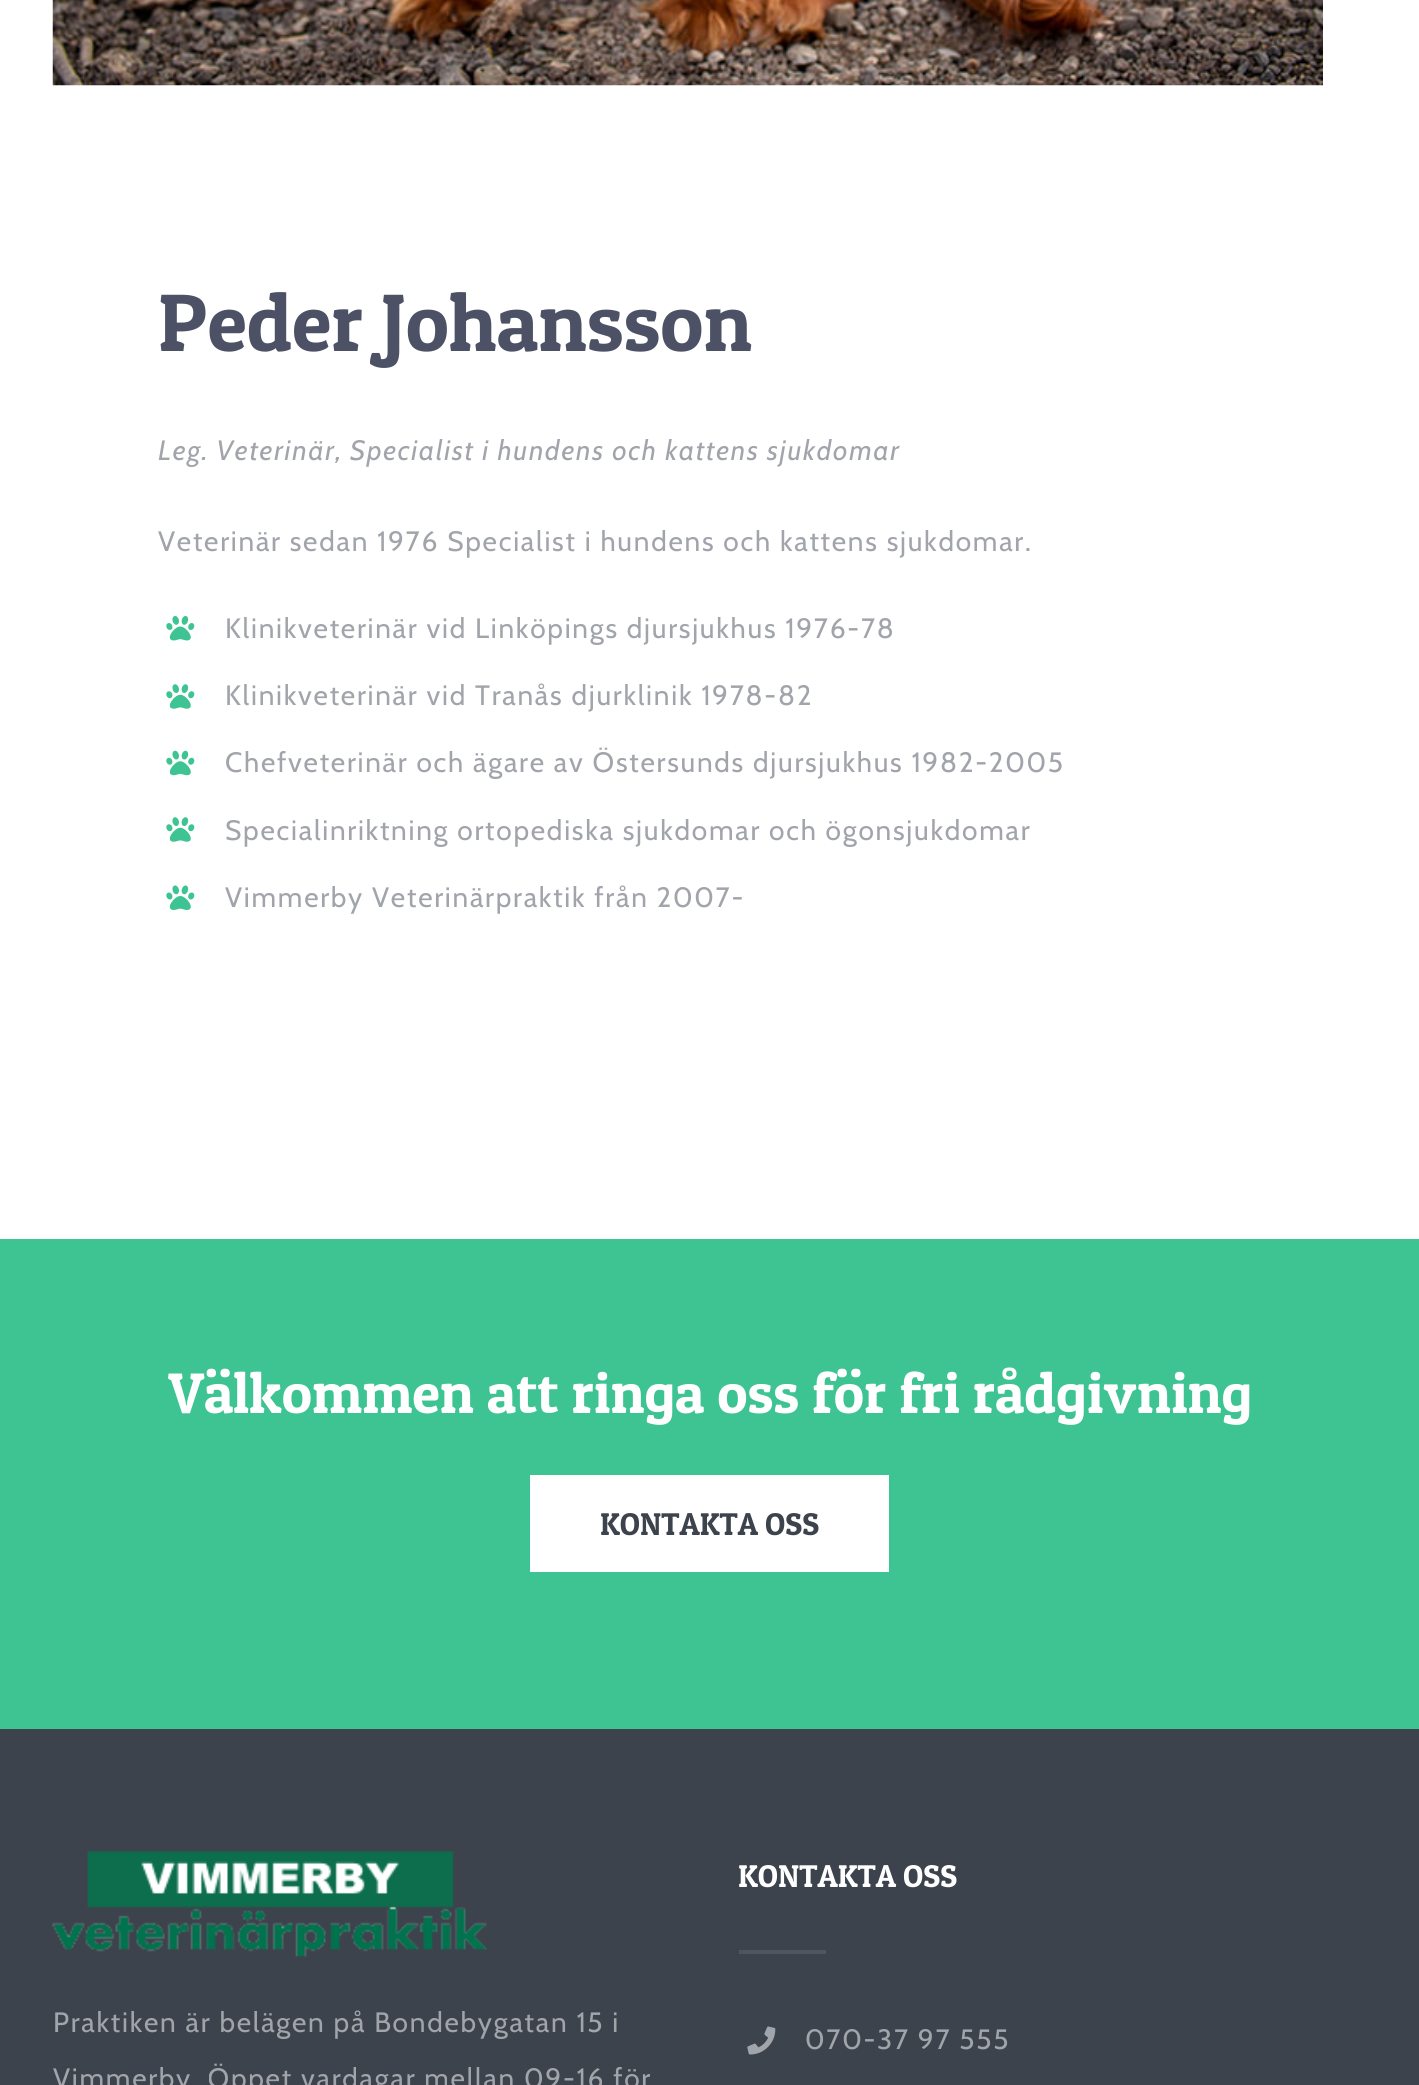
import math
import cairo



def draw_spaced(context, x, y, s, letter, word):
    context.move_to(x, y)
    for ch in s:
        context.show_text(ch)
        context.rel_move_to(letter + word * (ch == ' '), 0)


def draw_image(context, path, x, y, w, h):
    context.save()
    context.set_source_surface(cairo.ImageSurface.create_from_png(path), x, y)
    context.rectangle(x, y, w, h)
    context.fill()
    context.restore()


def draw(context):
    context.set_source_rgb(1, 1, 1)
    context.paint()
    draw_image(context, "images/1.png", 52, 0, 1271, 86)
    draw_image(context, "images/2.png", 166, 616, 29, 25)
    draw_image(context, "images/3.png", 166, 684, 29, 25)
    draw_image(context, "images/4.png", 166, 750, 29, 26)
    draw_image(context, "images/3.png", 166, 817, 29, 25)
    draw_image(context, "images/5.png", 166, 885, 29, 25)
    context.set_source_rgb(62 / 255, 196 / 255, 146 / 255)
    context.rectangle(0, 1239, 1419, 490)
    context.fill()
    context.set_source_rgb(1, 1, 1)
    context.rectangle(530, 1475, 359, 97)
    context.fill()
    context.set_source_rgb(61 / 255, 67 / 255, 76 / 255)
    context.rectangle(0, 1729, 1419, 356)
    context.fill()
    draw_image(context, "images/6.png", 52, 1851, 435, 106)
    context.set_source_rgb(77 / 255, 85 / 255, 96 / 255)
    context.rectangle(739, 1950, 87, 4)
    context.fill()
    draw_image(context, "images/7.png", 747, 2026, 29, 29)
    context.select_font_face("Patua One")
    context.set_font_size(81.5)
    context.set_source_rgb(76 / 255, 81 / 255, 102 / 255)
    context.move_to(158, 351)
    context.show_text("Peder Johansson")
    context.select_font_face("Cabin", cairo.FontSlant.ITALIC)
    context.set_font_size(28)
    context.set_source_rgb(161 / 255, 164 / 255, 170 / 255)
    draw_spaced(context, 158, 460, "Leg. Veterinär, Specialist i hundens och kattens sjukdomar", 1.75, 0)
    context.select_font_face("Cabin")
    draw_spaced(context, 158, 551, "Veterinär sedan 1976 Specialist i hundens och kattens sjukdomar.", 1.75, 0)
    draw_spaced(context, 225, 638, "Klinikveterinär vid Linköpings djursjukhus 1976-78", 1.75, 0)
    draw_spaced(context, 225, 705, "Klinikveterinär vid Tranås djurklinik 1978-82", 1.75, 0)
    draw_spaced(context, 225, 772, "Chefveterinär och ägare av Östersunds djursjukhus 1982-2005", 1.75, 0)
    draw_spaced(context, 225, 840, "Specialinriktning ortopediska sjukdomar och ögonsjukdomar", 1.75, 0)
    draw_spaced(context, 225, 907, "Vimmerby Veterinärpraktik från 2007-", 1.75, 0)
    context.select_font_face("Patua One")
    context.set_font_size(57.2)
    context.set_source_rgb(1, 1, 1)
    context.move_to(168, 1413)
    context.show_text("Välkommen att ringa oss för fri rådgivning")
    context.set_font_size(31.5)
    context.set_source_rgb(61 / 255, 67 / 255, 76 / 255)
    context.move_to(600, 1535)
    context.show_text("KONTAKTA OSS")
    context.select_font_face("Cabin")
    context.set_font_size(28)
    context.set_source_rgb(161 / 255, 164 / 255, 170 / 255)
    draw_spaced(context, 53, 2032, "Praktiken är belägen på Bondebygatan 15 i", 1.75, 0)
    draw_spaced(context, 53, 2088, "Vimmerby. Öppet vardagar mellan 09-16 för", 1.75, 0)
    context.select_font_face("Patua One")
    context.set_font_size(31.5)
    context.set_source_rgb(1, 1, 1)
    context.move_to(738, 1887)
    context.show_text("KONTAKTA OSS")
    context.select_font_face("Cabin")
    context.set_font_size(28)
    context.set_source_rgb(161 / 255, 164 / 255, 170 / 255)
    draw_spaced(context, 805, 2049, "070-37 97 555", 1.75, 0)


surface = cairo.ImageSurface(cairo.Format.RGB24, 1419, 2085)
context = cairo.Context(surface)
options = cairo.FontOptions()
options.set_hint_metrics(cairo.HintMetrics.OFF)
options.set_hint_style(cairo.HintStyle.NONE)
context.set_font_options(options)
context.set_miter_limit(4)
draw(context)
surface.write_to_png("out.png")
